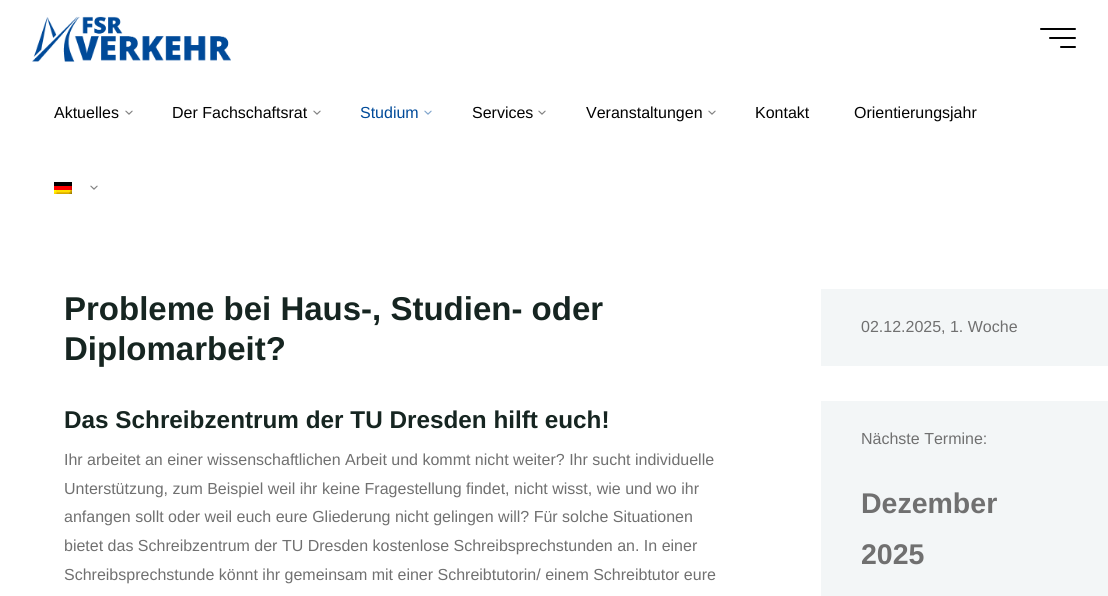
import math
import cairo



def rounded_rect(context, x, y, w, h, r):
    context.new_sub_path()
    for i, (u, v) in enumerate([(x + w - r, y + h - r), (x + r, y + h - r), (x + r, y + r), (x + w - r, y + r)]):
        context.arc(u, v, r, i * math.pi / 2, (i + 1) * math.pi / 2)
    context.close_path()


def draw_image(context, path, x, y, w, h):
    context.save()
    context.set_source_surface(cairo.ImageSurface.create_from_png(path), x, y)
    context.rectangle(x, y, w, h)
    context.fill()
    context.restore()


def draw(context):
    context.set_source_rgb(1, 1, 1)
    context.paint()
    draw_image(context, "images/1.png", 32, 16, 199, 46)
    context.set_source_rgb(2 / 255, 2 / 255, 2 / 255)
    rounded_rect(context, 1040, 28, 36, 2, 1)
    context.fill()
    rounded_rect(context, 1049, 37, 27, 2, 1)
    context.fill()
    rounded_rect(context, 1060, 46, 16, 2, 1)
    context.fill()
    draw_image(context, "images/2.png", 125, 110, 8, 5)
    draw_image(context, "images/2.png", 313, 110, 8, 5)
    draw_image(context, "images/3.png", 424, 110, 8, 5)
    draw_image(context, "images/2.png", 538, 110, 8, 5)
    draw_image(context, "images/2.png", 708, 110, 8, 5)
    draw_image(context, "images/4.png", 54, 182, 18, 12)
    draw_image(context, "images/2.png", 90, 185, 8, 5)
    context.set_source_rgb(243 / 255, 246 / 255, 247 / 255)
    context.rectangle(821, 289, 287, 77)
    context.fill()
    context.rectangle(821, 401, 287, 195)
    context.fill()
    context.select_font_face("Liberation Sans")
    context.set_font_size(16)
    context.set_source_rgb(2 / 255, 2 / 255, 2 / 255)
    context.move_to(54, 118)
    context.show_text("Aktuelles")
    context.move_to(172, 118)
    context.show_text("Der Fachschaftsrat")
    context.set_source_rgb(0, 74 / 255, 153 / 255)
    context.move_to(360, 118)
    context.show_text("Studium")
    context.set_source_rgb(2 / 255, 2 / 255, 2 / 255)
    context.move_to(472, 118)
    context.show_text("Services")
    context.move_to(586, 118)
    context.show_text("Veranstaltungen")
    context.move_to(755, 118)
    context.show_text("Kontakt")
    context.move_to(854, 118)
    context.show_text("Orientierungsjahr")
    context.select_font_face("Liberation Sans", cairo.FontSlant.NORMAL, cairo.FontWeight.BOLD)
    context.set_font_size(33)
    context.set_source_rgb(22 / 255, 37 / 255, 33 / 255)
    context.move_to(64, 320)
    context.show_text("Probleme bei Haus-, Studien- oder")
    context.move_to(64, 360)
    context.show_text("Diplomarbeit?")
    context.set_font_size(24.3)
    context.move_to(64, 428)
    context.show_text("Das Schreibzentrum der TU Dresden hilft euch!")
    context.select_font_face("Liberation Sans")
    context.set_font_size(16)
    context.set_source_rgb(112 / 255, 112 / 255, 112 / 255)
    context.move_to(64, 465)
    context.show_text("Ihr arbeitet an einer wissenschaftlichen Arbeit und kommt nicht weiter? Ihr sucht individuelle")
    context.move_to(64, 494)
    context.show_text("Unterstützung, zum Beispiel weil ihr keine Fragestellung findet, nicht wisst, wie und wo ihr")
    context.move_to(64, 522)
    context.show_text("anfangen sollt oder weil euch eure Gliederung nicht gelingen will? Für solche Situationen")
    context.move_to(64, 551)
    context.show_text("bietet das Schreibzentrum der TU Dresden kostenlose Schreibsprechstunden an. In einer")
    context.move_to(64, 580)
    context.show_text("Schreibsprechstunde könnt ihr gemeinsam mit einer Schreibtutorin/ einem Schreibtutor eure")
    context.move_to(861, 332)
    context.show_text("02.12.2025, 1. Woche")
    context.move_to(861, 444)
    context.show_text("Nächste Termine:")
    context.select_font_face("Liberation Sans", cairo.FontSlant.NORMAL, cairo.FontWeight.BOLD)
    context.set_font_size(28.5)
    context.move_to(861, 513)
    context.show_text("Dezember")
    context.move_to(861, 564)
    context.show_text("2025")


surface = cairo.ImageSurface(cairo.Format.RGB24, 1108, 596)
context = cairo.Context(surface)
options = cairo.FontOptions()
options.set_hint_metrics(cairo.HintMetrics.OFF)
options.set_hint_style(cairo.HintStyle.NONE)
context.set_font_options(options)
context.set_miter_limit(4)
draw(context)
surface.write_to_png("out.png")
